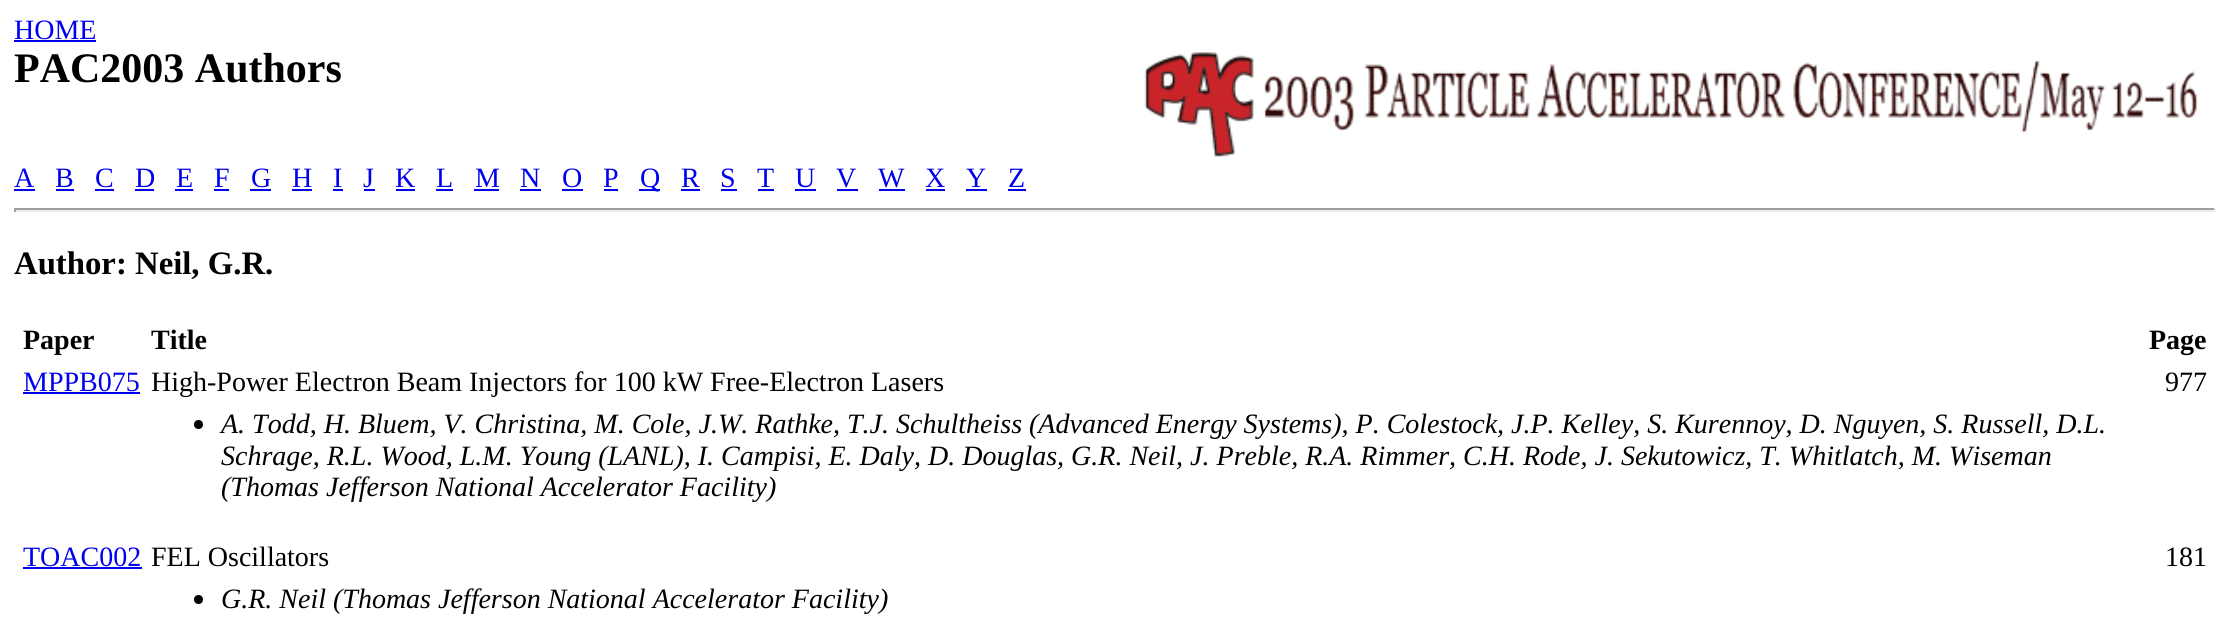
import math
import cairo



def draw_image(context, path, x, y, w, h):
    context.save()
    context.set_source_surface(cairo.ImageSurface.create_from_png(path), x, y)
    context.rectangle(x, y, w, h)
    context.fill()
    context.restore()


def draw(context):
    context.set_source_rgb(1, 1, 1)
    context.paint()
    context.set_source_rgb(0, 0, 238 / 255)
    context.rectangle(14, 40, 82, 2)
    context.fill()
    draw_image(context, "images/1.png", 1144, 52, 1053, 106)
    context.rectangle(14, 189, 21, 2)
    context.fill()
    context.rectangle(56, 189, 18, 2)
    context.fill()
    context.rectangle(95, 189, 19, 2)
    context.fill()
    context.rectangle(135, 189, 19, 2)
    context.fill()
    context.rectangle(175, 189, 18, 2)
    context.fill()
    context.rectangle(214, 189, 15, 2)
    context.fill()
    context.rectangle(250, 189, 21, 2)
    context.fill()
    context.rectangle(292, 189, 20, 2)
    context.fill()
    context.rectangle(333, 189, 10, 2)
    context.fill()
    context.rectangle(364, 189, 11, 2)
    context.fill()
    context.rectangle(396, 189, 19, 2)
    context.fill()
    context.rectangle(436, 189, 17, 2)
    context.fill()
    context.rectangle(474, 189, 25, 2)
    context.fill()
    context.rectangle(520, 189, 21, 2)
    context.fill()
    context.rectangle(562, 189, 21, 2)
    context.fill()
    context.rectangle(604, 189, 14, 2)
    context.fill()
    context.rectangle(639, 189, 21, 2)
    context.fill()
    context.rectangle(681, 189, 19, 2)
    context.fill()
    context.rectangle(721, 189, 16, 2)
    context.fill()
    context.rectangle(758, 189, 16, 2)
    context.fill()
    context.rectangle(795, 189, 21, 2)
    context.fill()
    context.rectangle(837, 189, 21, 2)
    context.fill()
    context.rectangle(879, 189, 26, 2)
    context.fill()
    context.rectangle(926, 189, 19, 2)
    context.fill()
    context.rectangle(966, 189, 21, 2)
    context.fill()
    context.rectangle(1008, 189, 18, 2)
    context.fill()
    context.set_source_rgb(159 / 255, 159 / 255, 159 / 255)
    context.rectangle(14, 208, 2202, 2)
    context.fill()
    context.set_source_rgb(238 / 255, 238 / 255, 238 / 255)
    context.rectangle(2214, 208, 2, 4)
    context.fill()
    context.rectangle(14, 210, 2202, 2)
    context.fill()
    context.set_source_rgb(159 / 255, 159 / 255, 159 / 255)
    context.rectangle(14, 208, 2, 4)
    context.fill()
    context.set_source_rgb(0, 0, 238 / 255)
    context.rectangle(23, 392, 117, 2)
    context.fill()
    context.set_source_rgb(0, 0, 0)
    context.arc(198.5, 424.5, 4.5, 0, 2 * math.pi)
    context.fill()
    context.set_source_rgb(0, 0, 238 / 255)
    context.rectangle(23, 567, 119, 2)
    context.fill()
    context.set_source_rgb(0, 0, 0)
    context.arc(198.5, 599.5, 4.5, 0, 2 * math.pi)
    context.fill()
    context.select_font_face("Liberation Serif")
    context.set_font_size(28)
    context.set_source_rgb(0, 0, 238 / 255)
    context.move_to(14, 39)
    context.show_text("HOME")
    context.select_font_face("Liberation Serif", cairo.FontSlant.NORMAL, cairo.FontWeight.BOLD)
    context.set_font_size(42)
    context.set_source_rgb(0, 0, 0)
    context.move_to(14, 82)
    context.show_text("PAC2003 Authors")
    context.select_font_face("Liberation Serif")
    context.set_font_size(28)
    context.set_source_rgb(0, 0, 238 / 255)
    context.move_to(14, 187)
    context.show_text("A")
    context.move_to(55, 187)
    context.show_text("B")
    context.move_to(95, 187)
    context.show_text("C")
    context.move_to(135, 187)
    context.show_text("D")
    context.move_to(176, 187)
    context.show_text("E")
    context.move_to(214, 187)
    context.show_text("F")
    context.move_to(251, 187)
    context.show_text("G")
    context.move_to(292, 187)
    context.show_text("H")
    context.move_to(333, 187)
    context.show_text("I")
    context.move_to(363, 187)
    context.show_text("J")
    context.move_to(395, 187)
    context.show_text("K")
    context.move_to(436, 187)
    context.show_text("L")
    context.move_to(475, 187)
    context.show_text("M")
    context.move_to(520, 187)
    context.show_text("N")
    context.move_to(562, 187)
    context.show_text("O")
    context.move_to(603, 187)
    context.show_text("P")
    context.move_to(640, 187)
    context.show_text("Q")
    context.move_to(681, 187)
    context.show_text("R")
    context.move_to(720, 187)
    context.show_text("S")
    context.move_to(757, 187)
    context.show_text("T")
    context.move_to(795, 187)
    context.show_text("U")
    context.move_to(836, 187)
    context.show_text("V")
    context.move_to(878, 187)
    context.show_text("W")
    context.move_to(925, 187)
    context.show_text("X")
    context.move_to(966, 187)
    context.show_text("Y")
    context.move_to(1008, 187)
    context.show_text("Z")
    context.select_font_face("Liberation Serif", cairo.FontSlant.NORMAL, cairo.FontWeight.BOLD)
    context.set_font_size(32.75)
    context.set_source_rgb(0, 0, 0)
    context.move_to(14, 274)
    context.show_text("Author: Neil, G.R.")
    context.set_font_size(28)
    context.move_to(23, 349)
    context.show_text("Paper")
    context.move_to(151, 349)
    context.show_text("Title")
    context.move_to(2149, 349)
    context.show_text("Page")
    context.select_font_face("Liberation Serif")
    context.set_source_rgb(0, 0, 238 / 255)
    context.move_to(23, 391)
    context.show_text("MPPB075")
    context.set_source_rgb(0, 0, 0)
    context.move_to(151, 391)
    context.show_text("High-Power Electron Beam Injectors for 100 kW Free-Electron Lasers")
    context.move_to(2165, 391)
    context.show_text("977")
    context.select_font_face("Liberation Serif", cairo.FontSlant.ITALIC)
    context.move_to(221, 433)
    context.show_text("A. Todd, H. Bluem, V. Christina, M. Cole, J.W. Rathke, T.J. Schultheiss (Advanced Energy Systems), P. Colestock, J.P. Kelley, S. Kurennoy, D. Nguyen, S. Russell, D.L.")
    context.move_to(221, 465)
    context.show_text("Schrage, R.L. Wood, L.M. Young (LANL), I. Campisi, E. Daly, D. Douglas, G.R. Neil, J. Preble, R.A. Rimmer, C.H. Rode, J. Sekutowicz, T. Whitlatch, M. Wiseman")
    context.move_to(221, 496)
    context.show_text("(Thomas Jefferson National Accelerator Facility)")
    context.select_font_face("Liberation Serif")
    context.set_source_rgb(0, 0, 238 / 255)
    context.move_to(23, 566)
    context.show_text("TOAC002")
    context.set_source_rgb(0, 0, 0)
    context.move_to(151, 566)
    context.show_text("FEL Oscillators")
    context.move_to(2165, 566)
    context.show_text("181")
    context.select_font_face("Liberation Serif", cairo.FontSlant.ITALIC)
    context.move_to(221, 608)
    context.show_text("G.R. Neil (Thomas Jefferson National Accelerator Facility)")


surface = cairo.ImageSurface(cairo.Format.RGB24, 2228, 637)
context = cairo.Context(surface)
options = cairo.FontOptions()
options.set_hint_metrics(cairo.HintMetrics.OFF)
options.set_hint_style(cairo.HintStyle.NONE)
context.set_font_options(options)
context.set_miter_limit(4)
draw(context)
surface.write_to_png("out.png")
